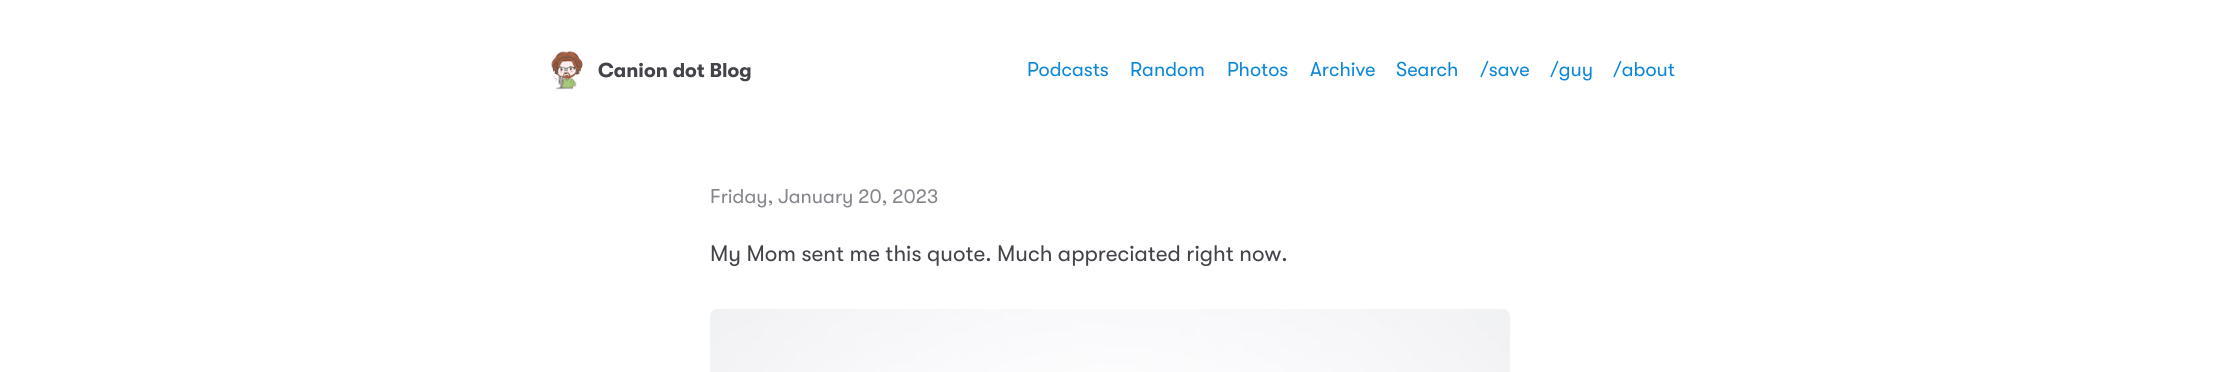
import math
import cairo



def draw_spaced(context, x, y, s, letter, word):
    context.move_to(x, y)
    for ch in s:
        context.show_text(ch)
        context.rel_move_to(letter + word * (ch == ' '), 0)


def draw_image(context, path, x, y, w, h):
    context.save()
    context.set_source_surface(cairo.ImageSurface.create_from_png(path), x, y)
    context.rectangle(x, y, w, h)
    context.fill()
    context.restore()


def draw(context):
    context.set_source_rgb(1, 1, 1)
    context.paint()
    draw_image(context, "images/1.png", 551, 51, 32, 39)
    draw_image(context, "images/2.png", 710, 309, 800, 63)
    context.select_font_face("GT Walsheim", cairo.FontSlant.NORMAL, cairo.FontWeight.BOLD)
    context.set_font_size(20)
    context.set_source_rgb(66 / 255, 68 / 255, 74 / 255)
    context.move_to(598, 77)
    context.show_text("Canion dot Blog")
    context.select_font_face("GT Walsheim")
    context.set_source_rgb(13 / 255, 136 / 255, 216 / 255)
    context.move_to(1027, 76)
    context.show_text("Podcasts")
    context.move_to(1130, 76)
    context.show_text("Random")
    context.move_to(1227, 76)
    context.show_text("Photos")
    context.move_to(1310, 76)
    context.show_text("Archive")
    context.move_to(1396, 76)
    context.show_text("Search")
    context.move_to(1480, 76)
    context.show_text("/save")
    context.move_to(1550, 76)
    context.show_text("/guy")
    context.move_to(1613, 76)
    context.show_text("/about")
    context.set_source_rgb(132 / 255, 134 / 255, 139 / 255)
    draw_spaced(context, 710, 203, "Friday, January 20, 2023", 0, -0.5)
    context.set_font_size(22.5)
    context.set_source_rgb(66 / 255, 68 / 255, 74 / 255)
    draw_spaced(context, 710, 261, "My Mom sent me this quote. Much appreciated right now.", 0, -0.25)


surface = cairo.ImageSurface(cairo.Format.RGB24, 2219, 372)
context = cairo.Context(surface)
options = cairo.FontOptions()
options.set_hint_metrics(cairo.HintMetrics.OFF)
options.set_hint_style(cairo.HintStyle.NONE)
context.set_font_options(options)
context.set_miter_limit(4)
draw(context)
surface.write_to_png("out.png")
